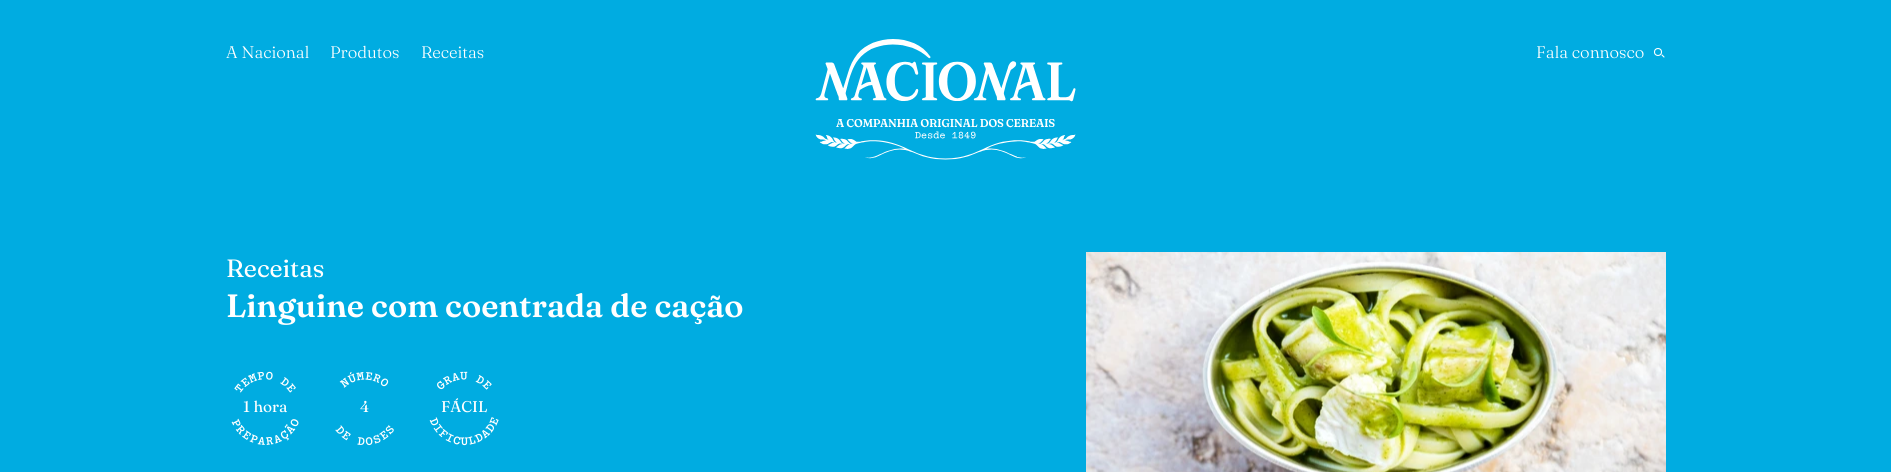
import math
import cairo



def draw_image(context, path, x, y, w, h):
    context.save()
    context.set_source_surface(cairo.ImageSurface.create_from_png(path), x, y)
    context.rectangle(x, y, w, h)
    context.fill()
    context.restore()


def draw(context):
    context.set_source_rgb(0, 172 / 255, 225 / 255)
    context.paint()
    draw_image(context, "images/1.png", 815, 39, 261, 121)
    context.arc(1658, 52, 3.5, 0, 2 * math.pi)
    context.set_source_rgb(1, 1, 1)
    context.set_line_width(1.1)
    context.stroke()
    context.new_path()
    context.move_to(1662, 55)
    context.line_to(1664, 57)
    context.set_line_cap(cairo.LineCap.ROUND)
    context.set_line_join(cairo.LineJoin.ROUND)
    context.stroke()
    draw_image(context, "images/5.png", 1086, 252, 580, 220)
    context.select_font_face("Fraunces Light")
    context.set_font_size(16.75)
    context.move_to(226, 58)
    context.show_text("A Nacional")
    context.move_to(330, 58)
    context.show_text("Produtos")
    context.move_to(421, 58)
    context.show_text("Receitas")
    context.move_to(1536, 58)
    context.show_text("Fala connosco")
    context.select_font_face("Fraunces")
    context.set_font_size(25)
    context.move_to(226, 277)
    context.show_text("Receitas")
    context.select_font_face("Fraunces SemiBold")
    context.set_font_size(32.25)
    context.move_to(226, 317)
    context.show_text("Linguine com coentrada de cação")
    context.select_font_face("Fraunces")
    context.set_font_size(15.5)
    context.move_to(243, 412)
    context.show_text("1 hora")
    draw_image(context, "images/2.png", 231, 371, 68, 74)
    context.move_to(360, 412)
    context.show_text("4")
    draw_image(context, "images/3.png", 335, 371, 59, 75)
    context.move_to(441, 412)
    context.show_text("FÁCIL")
    draw_image(context, "images/4.png", 429, 371, 70, 75)


surface = cairo.ImageSurface(cairo.Format.RGB24, 1891, 472)
context = cairo.Context(surface)
options = cairo.FontOptions()
options.set_hint_metrics(cairo.HintMetrics.OFF)
options.set_hint_style(cairo.HintStyle.NONE)
context.set_font_options(options)
context.set_miter_limit(4)
draw(context)
surface.write_to_png("out.png")
